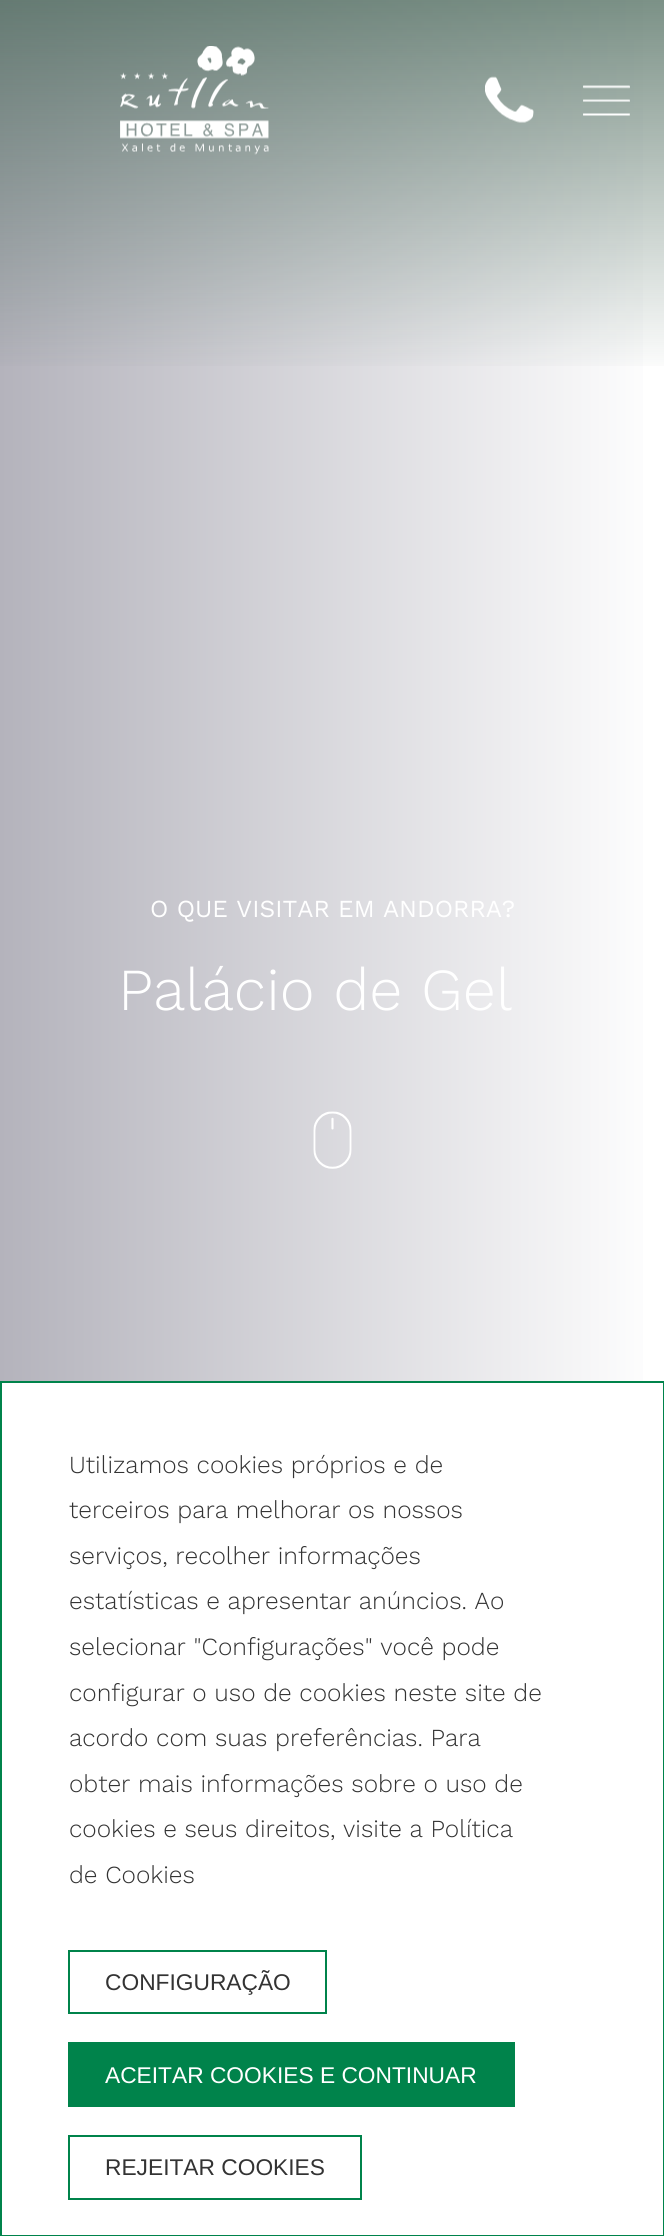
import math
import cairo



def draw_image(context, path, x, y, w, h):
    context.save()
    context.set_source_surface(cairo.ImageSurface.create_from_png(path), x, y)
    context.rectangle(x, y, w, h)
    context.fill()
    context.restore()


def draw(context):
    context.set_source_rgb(1, 1, 1)
    context.paint()
    gradient = cairo.LinearGradient(0, 963, 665, 963)
    gradient.add_color_stop_rgba(0, 180 / 255, 179 / 255, 188 / 255, 1)
    gradient.add_color_stop_rgba(1, 1, 1, 1, 1)
    context.set_source(gradient)
    context.rectangle(0, 0, 643, 1381)
    context.fill()
    gradient = cairo.LinearGradient(333, 0, 333, 378)
    gradient.add_color_stop_rgba(0, 67 / 255, 98 / 255, 83 / 255, 0.7)
    gradient.add_color_stop_rgba(1, 67 / 255, 98 / 255, 83 / 255, 0)
    context.set_source(gradient)
    context.rectangle(0, 0, 664, 366)
    context.fill()
    draw_image(context, "images/1.png", 120, 46, 149, 109)
    draw_image(context, "images/2.png", 485, 76, 49, 47)
    draw_image(context, "images/3.png", 583, 85, 47, 31)
    draw_image(context, "images/4.png", 313, 1111, 39, 58)
    context.rectangle(1, 1382, 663, 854)
    context.set_source_rgb(0, 131 / 255, 75 / 255)
    context.stroke()
    context.rectangle(69, 1951, 257, 62)
    context.stroke()
    context.rectangle(68, 2042, 447, 65)
    context.fill()
    context.rectangle(69, 2136, 292, 63)
    context.stroke()
    context.select_font_face("Work Sans")
    context.set_font_size(24.5)
    context.set_source_rgb(1, 1, 1)
    context.move_to(150, 917)
    context.show_text("O QUE VISITAR EM ANDORRA?")
    context.select_font_face("Work Sans Light")
    context.set_font_size(59.5)
    context.move_to(118, 1010)
    context.show_text("Palácio de Gel")
    context.set_font_size(24.5)
    context.set_source_rgb(51 / 255, 51 / 255, 51 / 255)
    context.move_to(69, 1473)
    context.show_text("Utilizamos cookies próprios e de")
    context.move_to(69, 1518)
    context.show_text("terceiros para melhorar os nossos")
    context.move_to(69, 1564)
    context.show_text("serviços, recolher informações")
    context.move_to(69, 1609)
    context.show_text("estatísticas e apresentar anúncios. Ao")
    context.move_to(69, 1655)
    context.show_text("selecionar \"Configurações\" você pode")
    context.move_to(69, 1701)
    context.show_text("configurar o uso de cookies neste site de")
    context.move_to(69, 1746)
    context.show_text("acordo com suas preferências. Para")
    context.move_to(69, 1792)
    context.show_text("obter mais informações sobre o uso de")
    context.move_to(69, 1837)
    context.show_text("cookies e seus direitos, visite a Política")
    context.move_to(69, 1883)
    context.show_text("de Cookies")
    context.select_font_face("Liberation Sans")
    context.set_font_size(22.75)
    context.move_to(105, 1990)
    context.show_text("CONFIGURAÇÃO")
    context.set_source_rgb(1, 1, 1)
    context.move_to(105, 2083)
    context.show_text("ACEITAR COOKIES E CONTINUAR")
    context.set_source_rgb(51 / 255, 51 / 255, 51 / 255)
    context.move_to(105, 2175)
    context.show_text("REJEITAR COOKIES")


surface = cairo.ImageSurface(cairo.Format.RGB24, 664, 2236)
context = cairo.Context(surface)
options = cairo.FontOptions()
options.set_hint_metrics(cairo.HintMetrics.OFF)
options.set_hint_style(cairo.HintStyle.NONE)
context.set_font_options(options)
context.set_miter_limit(4)
draw(context)
surface.write_to_png("out.png")
